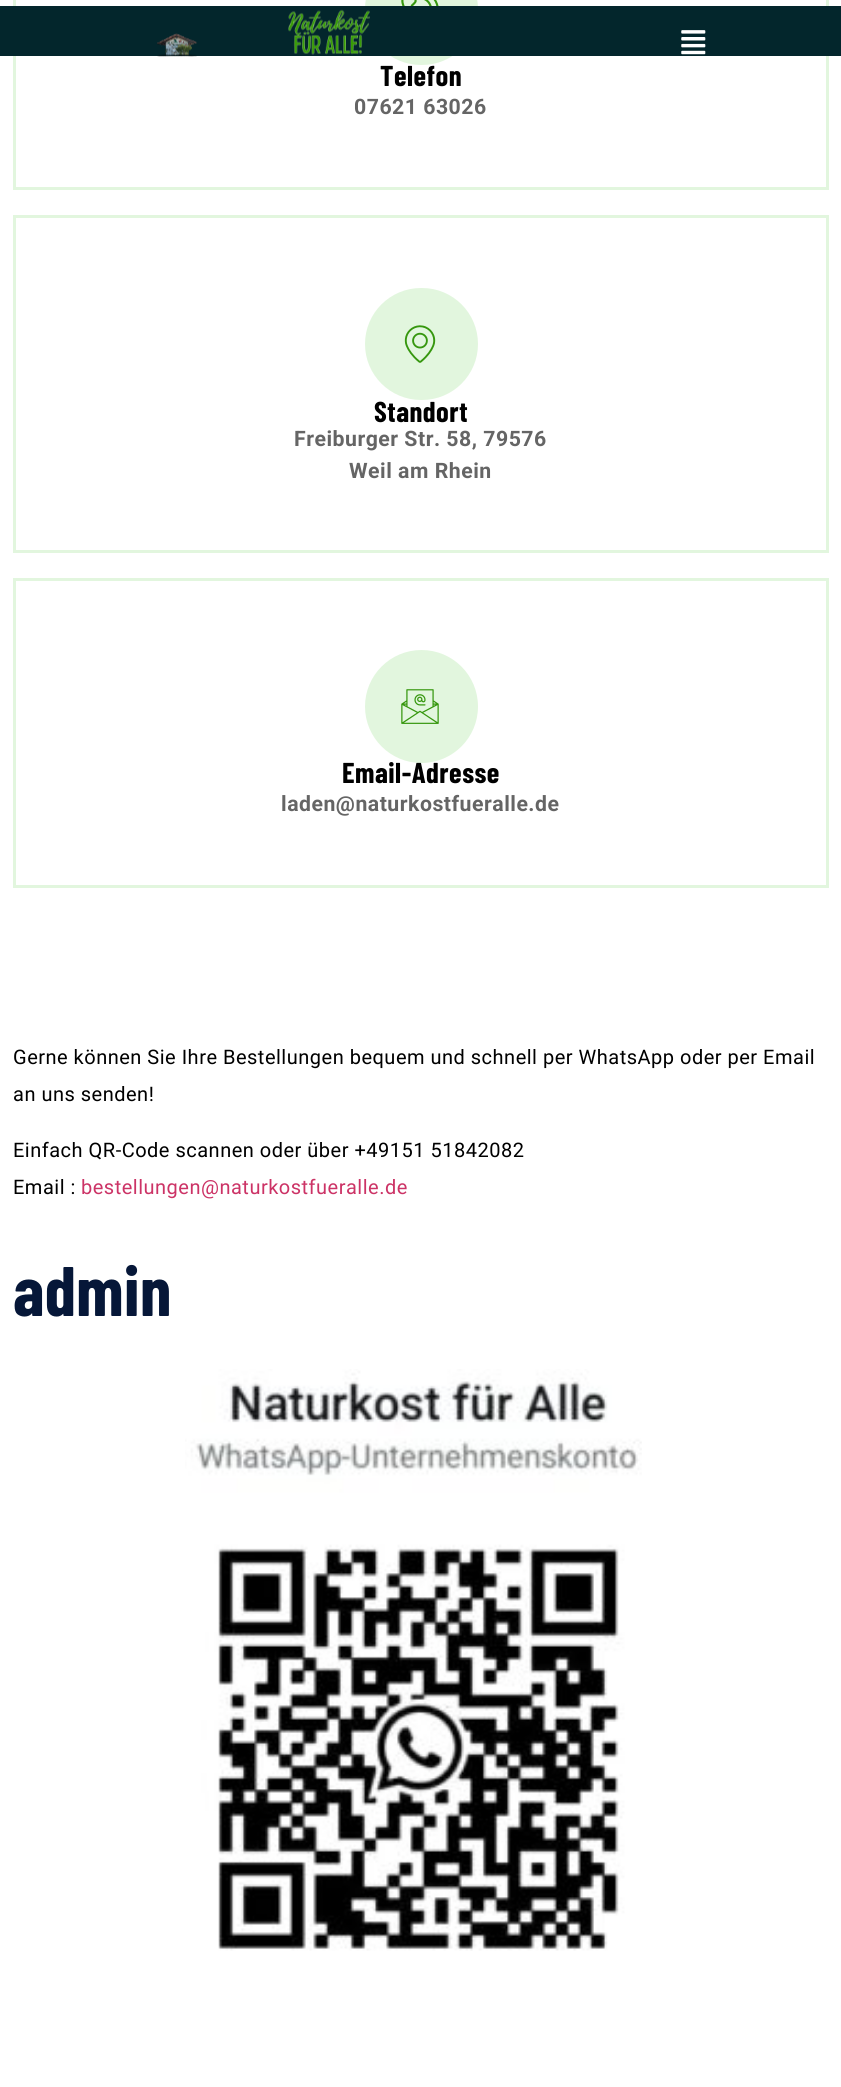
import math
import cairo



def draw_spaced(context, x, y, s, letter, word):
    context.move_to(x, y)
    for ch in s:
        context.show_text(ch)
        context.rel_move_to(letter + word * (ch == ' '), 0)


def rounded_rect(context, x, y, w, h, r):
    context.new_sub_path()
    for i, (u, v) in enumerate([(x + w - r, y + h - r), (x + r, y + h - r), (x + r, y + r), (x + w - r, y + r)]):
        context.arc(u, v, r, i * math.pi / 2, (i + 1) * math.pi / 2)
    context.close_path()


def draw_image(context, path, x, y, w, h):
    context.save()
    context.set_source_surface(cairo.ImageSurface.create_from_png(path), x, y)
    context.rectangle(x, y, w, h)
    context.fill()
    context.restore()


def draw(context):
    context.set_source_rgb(1, 1, 1)
    context.paint()
    context.rectangle(14.5, -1.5, 813, 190)
    context.set_source_rgb(226 / 255, 246 / 255, 222 / 255)
    context.set_line_width(3)
    context.stroke()
    rounded_rect(context, 365, -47, 113, 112, 56)
    context.fill()
    context.set_source_rgb(3 / 255, 38 / 255, 44 / 255)
    context.rectangle(0, 6, 841, 50)
    context.fill()
    draw_image(context, "images/1.png", 157, 33, 40, 24)
    draw_image(context, "images/2.png", 288, 9, 82, 46)
    draw_image(context, "images/3.png", 681, 30, 25, 25)
    draw_image(context, "images/4.png", 401, 0, 38, 6)
    context.rectangle(14.5, 216.5, 813, 335)
    context.set_source_rgb(226 / 255, 246 / 255, 222 / 255)
    context.stroke()
    rounded_rect(context, 365, 288, 113, 112, 56)
    context.fill()
    draw_image(context, "images/5.png", 404, 325, 32, 38)
    context.rectangle(14.5, 579.5, 813, 307)
    context.stroke()
    context.arc(421.5, 706.5, 56.5, 0, 2 * math.pi)
    context.fill()
    draw_image(context, "images/6.png", 401, 689, 38, 35)
    draw_image(context, "images/7.png", 185, 1369, 457, 582)
    context.select_font_face("Barlow Condensed", cairo.FontSlant.NORMAL, cairo.FontWeight.BOLD)
    context.set_font_size(28.75)
    context.set_source_rgb(0, 0, 0)
    draw_spaced(context, 380, 86, "Telefon", 0.5, 0)
    context.select_font_face("Roboto", cairo.FontSlant.NORMAL, cairo.FontWeight.BOLD)
    context.set_font_size(21.25)
    context.set_source_rgb(101 / 255, 101 / 255, 101 / 255)
    draw_spaced(context, 354, 114, "07621 63026", 0.5, 0)
    context.select_font_face("Barlow Condensed", cairo.FontSlant.NORMAL, cairo.FontWeight.BOLD)
    context.set_font_size(28.75)
    context.set_source_rgb(0, 0, 0)
    draw_spaced(context, 374, 422, "Standort", 0.5, 0)
    context.select_font_face("Roboto", cairo.FontSlant.NORMAL, cairo.FontWeight.BOLD)
    context.set_font_size(21.25)
    context.set_source_rgb(101 / 255, 101 / 255, 101 / 255)
    draw_spaced(context, 294, 446, "Freiburger Str. 58, 79576", 0.5, 0)
    draw_spaced(context, 349, 478, "Weil am Rhein", 0.5, 0)
    context.select_font_face("Barlow Condensed", cairo.FontSlant.NORMAL, cairo.FontWeight.BOLD)
    context.set_font_size(28.75)
    context.set_source_rgb(0, 0, 0)
    draw_spaced(context, 342, 783, "Email-Adresse", 0.5, 0)
    context.select_font_face("Roboto", cairo.FontSlant.NORMAL, cairo.FontWeight.BOLD)
    context.set_font_size(21.25)
    context.set_source_rgb(101 / 255, 101 / 255, 101 / 255)
    draw_spaced(context, 281, 811, "laden@naturkostfueralle.de", 0.5, 0)
    context.select_font_face("Roboto")
    context.set_font_size(20)
    context.set_source_rgb(0, 0, 0)
    draw_spaced(context, 13, 1064, "Gerne können Sie Ihre Bestellungen bequem und schnell per WhatsApp oder per Email", 0.5, 0)
    draw_spaced(context, 13, 1101, "an uns senden!", 0.5, 0)
    draw_spaced(context, 13, 1157, "Einfach QR-Code scannen oder über +49151 51842082", 0.5, 0)
    draw_spaced(context, 13, 1194, "Email :", 0.5, 0)
    context.set_source_rgb(204 / 255, 51 / 255, 102 / 255)
    draw_spaced(context, 81, 1194, "bestellungen@naturkostfueralle.de", 0.5, 0)
    context.select_font_face("Barlow Condensed", cairo.FontSlant.NORMAL, cairo.FontWeight.BOLD)
    context.set_font_size(70)
    context.set_source_rgb(6 / 255, 23 / 255, 56 / 255)
    draw_spaced(context, 13, 1316, "admin", 0.5, 0)


surface = cairo.ImageSurface(cairo.Format.RGB24, 841, 2087)
context = cairo.Context(surface)
options = cairo.FontOptions()
options.set_hint_metrics(cairo.HintMetrics.OFF)
options.set_hint_style(cairo.HintStyle.NONE)
context.set_font_options(options)
context.set_miter_limit(4)
draw(context)
surface.write_to_png("out.png")
